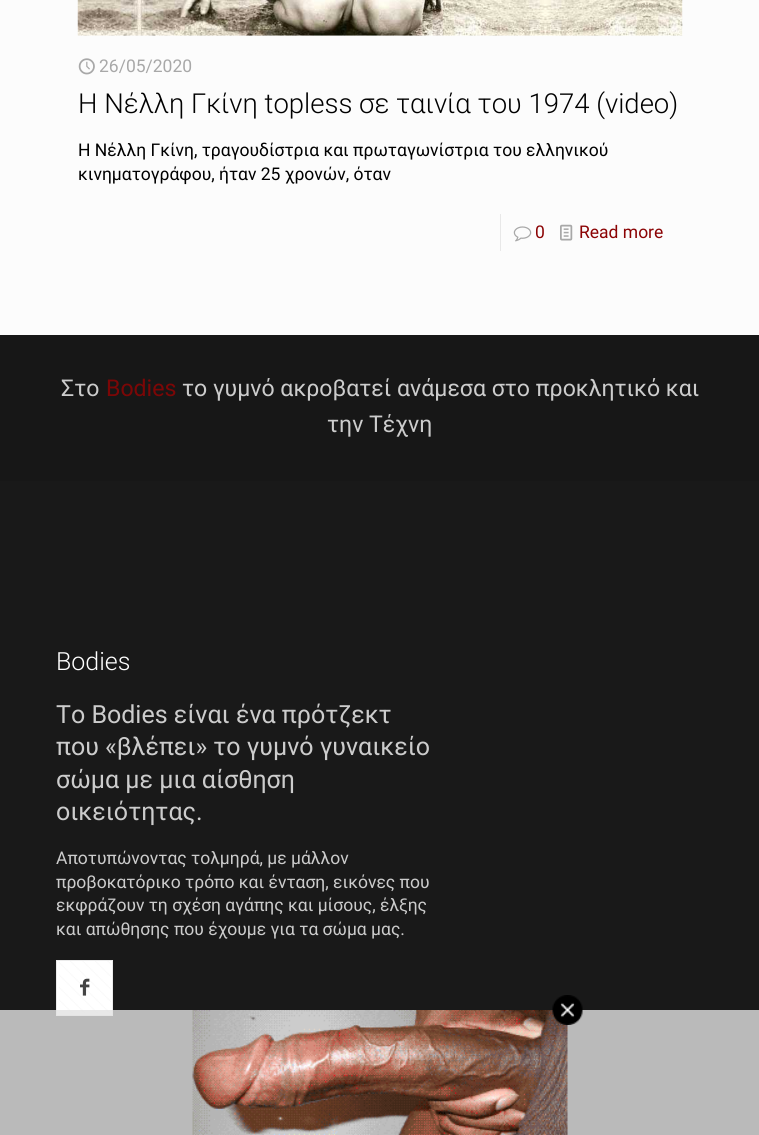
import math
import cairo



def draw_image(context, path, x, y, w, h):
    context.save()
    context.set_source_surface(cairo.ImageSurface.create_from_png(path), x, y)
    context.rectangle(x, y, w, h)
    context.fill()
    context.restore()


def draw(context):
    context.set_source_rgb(252 / 255, 252 / 255, 252 / 255)
    context.paint()
    draw_image(context, "images/1.png", 77, 0, 606, 36)
    draw_image(context, "images/2.png", 78, 58, 17, 17)
    context.set_source_rgb(232 / 255, 232 / 255, 232 / 255)
    context.rectangle(500, 214, 1, 37)
    context.fill()
    draw_image(context, "images/3.png", 513, 226, 19, 16)
    draw_image(context, "images/4.png", 560, 224, 13, 17)
    context.set_source_rgb(25 / 255, 25 / 255, 25 / 255)
    context.rectangle(0, 481, 759, 654)
    context.fill()
    context.set_source_rgb(23 / 255, 23 / 255, 23 / 255)
    context.rectangle(0, 335, 759, 146)
    context.fill()
    context.set_source_rgb(1, 1, 1)
    context.rectangle(56, 960, 57, 56)
    context.fill()
    draw_image(context, "images/5.png", 59, 961, 52, 52)
    context.rectangle(56.5, 960.5, 56, 55)
    context.set_source_rgba(0, 0, 0, 0.08)
    context.set_line_width(1)
    context.stroke()
    draw_image(context, "images/6.png", 80, 978, 10, 18)
    context.set_source_rgba(226 / 255, 226 / 255, 226 / 255, 0.8)
    context.rectangle(0, 1010, 759, 125)
    context.fill()
    draw_image(context, "images/8.png", 192, 1010, 376, 125)
    draw_image(context, "images/7.png", 552, 995, 31, 30)
    context.select_font_face("Roboto")
    context.set_font_size(17.5)
    context.set_source_rgb(168 / 255, 168 / 255, 168 / 255)
    context.move_to(99, 72)
    context.show_text("26/05/2020")
    context.select_font_face("Roboto Light")
    context.set_font_size(27.5)
    context.set_source_rgb(0, 0, 0)
    context.move_to(78, 113)
    context.show_text("Η Νέλλη Γκίνη topless σε ταινία του 1974 (video)")
    context.select_font_face("Roboto")
    context.set_font_size(17.5)
    context.move_to(78, 156)
    context.show_text("Η Νέλλη Γκίνη, τραγουδίστρια και πρωταγωνίστρια του ελληνικού")
    context.move_to(78, 180)
    context.show_text("κινηματογράφου, ήταν 25 χρονών, όταν")
    context.set_source_rgb(139 / 255, 3 / 255, 4 / 255)
    context.move_to(535, 238)
    context.show_text("0")
    context.move_to(579, 238)
    context.show_text("Read more")
    context.set_font_size(23.1)
    context.set_source_rgb(204 / 255, 204 / 255, 204 / 255)
    context.move_to(61, 396)
    context.show_text("Στο")
    context.set_source_rgb(124 / 255, 6 / 255, 6 / 255)
    context.move_to(106, 396)
    context.show_text("Bodies")
    context.set_source_rgb(204 / 255, 204 / 255, 204 / 255)
    context.move_to(182, 396)
    context.show_text("το γυμνό ακροβατεί ανάμεσα στο προκλητικό και")
    context.move_to(327, 432)
    context.show_text("την Τέχνη")
    context.select_font_face("Roboto Light")
    context.set_font_size(25)
    context.set_source_rgb(1, 1, 1)
    context.move_to(56, 670)
    context.show_text("Bodies")
    context.select_font_face("Roboto")
    context.set_source_rgb(204 / 255, 204 / 255, 204 / 255)
    context.move_to(56, 723)
    context.show_text("Το Bodies είναι ένα πρότζεκτ")
    context.move_to(56, 755)
    context.show_text("που «βλέπει» το γυμνό γυναικείο")
    context.move_to(56, 788)
    context.show_text("σώμα με μια αίσθηση")
    context.move_to(56, 820)
    context.show_text("οικειότητας.")
    context.set_font_size(17.5)
    context.move_to(56, 864)
    context.show_text("Αποτυπώνοντας τολμηρά, με μάλλον")
    context.move_to(56, 888)
    context.show_text("προβοκατόρικο τρόπο και ένταση, εικόνες που")
    context.move_to(56, 911)
    context.show_text("εκφράζουν τη σχέση αγάπης και μίσους, έλξης")
    context.move_to(56, 935)
    context.show_text("και απώθησης που έχουμε για τα σώμα μας.")


surface = cairo.ImageSurface(cairo.Format.RGB24, 759, 1135)
context = cairo.Context(surface)
options = cairo.FontOptions()
options.set_hint_metrics(cairo.HintMetrics.OFF)
options.set_hint_style(cairo.HintStyle.NONE)
context.set_font_options(options)
context.set_miter_limit(4)
draw(context)
surface.write_to_png("out.png")
